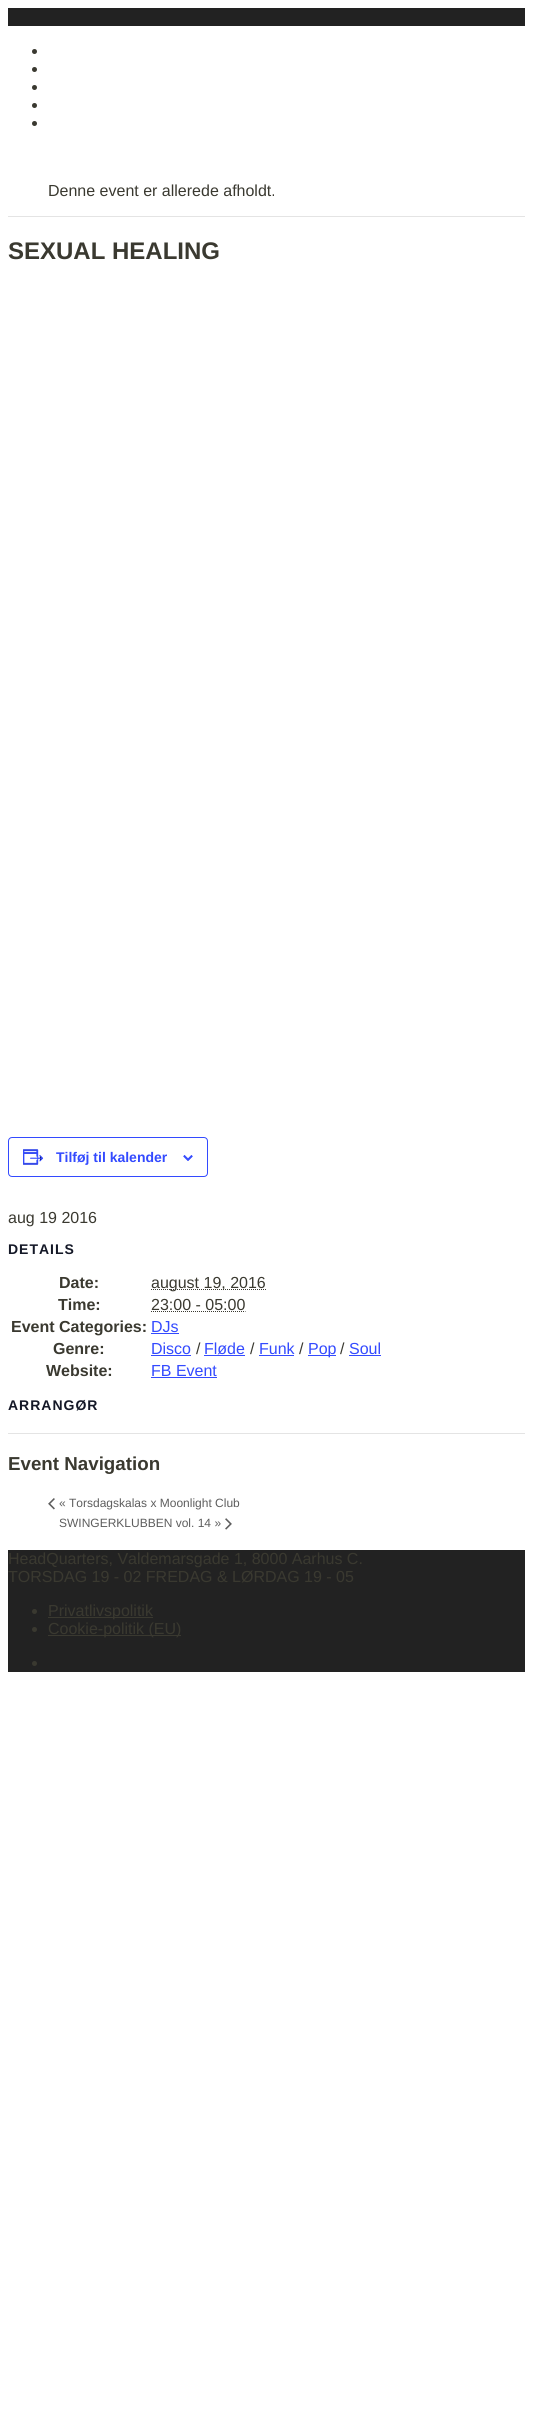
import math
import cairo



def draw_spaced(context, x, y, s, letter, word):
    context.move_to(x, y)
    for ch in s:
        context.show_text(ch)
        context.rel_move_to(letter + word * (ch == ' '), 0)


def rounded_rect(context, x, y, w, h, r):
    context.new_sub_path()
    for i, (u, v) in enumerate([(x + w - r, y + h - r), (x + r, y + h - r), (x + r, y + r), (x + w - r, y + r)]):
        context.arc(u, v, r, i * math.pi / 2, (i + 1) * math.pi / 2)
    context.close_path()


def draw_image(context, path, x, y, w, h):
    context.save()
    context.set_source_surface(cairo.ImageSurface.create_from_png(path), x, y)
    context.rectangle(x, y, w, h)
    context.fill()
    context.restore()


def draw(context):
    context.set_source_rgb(1, 1, 1)
    context.paint()
    context.set_source_rgb(34 / 255, 34 / 255, 34 / 255)
    context.rectangle(8, 8, 517, 18)
    context.fill()
    context.set_source_rgb(58 / 255, 57 / 255, 48 / 255)
    context.arc(34.5, 51.5, 2.5, 0, 2 * math.pi)
    context.fill()
    context.arc(34.5, 69.5, 2.5, 0, 2 * math.pi)
    context.fill()
    context.arc(34.5, 87.5, 2.5, 0, 2 * math.pi)
    context.fill()
    context.arc(34.5, 105.5, 2.5, 0, 2 * math.pi)
    context.fill()
    context.arc(34.5, 123.5, 2.5, 0, 2 * math.pi)
    context.fill()
    context.set_source_rgb(228 / 255, 228 / 255, 228 / 255)
    context.rectangle(8, 216, 517, 1)
    context.fill()
    rounded_rect(context, 8.5, 1137.5, 199, 39, 3.5)
    context.set_source_rgb(51 / 255, 74 / 255, 1)
    context.set_line_width(1)
    context.stroke()
    draw_image(context, "images/1.png", 23, 1149, 21, 16)
    draw_image(context, "images/2.png", 183, 1155, 10, 6)
    context.new_path()
    context.move_to(151, 1289.5)
    context.line_to(266, 1289.5)
    context.set_source_rgb(58 / 255, 57 / 255, 48 / 255)
    context.set_dash([1, 1])
    context.stroke()
    context.new_path()
    context.move_to(151, 1311.5)
    context.line_to(245.5, 1311.5)
    context.stroke()
    context.set_source_rgb(51 / 255, 74 / 255, 1)
    context.rectangle(151, 1333, 28, 1)
    context.fill()
    context.rectangle(151, 1355, 40, 1)
    context.fill()
    context.rectangle(204, 1355, 41, 1)
    context.fill()
    context.rectangle(259, 1355, 35, 1)
    context.fill()
    context.rectangle(308, 1355, 28, 1)
    context.fill()
    context.rectangle(349, 1355, 32, 1)
    context.fill()
    context.rectangle(151, 1377, 66, 1)
    context.fill()
    context.set_source_rgb(228 / 255, 228 / 255, 228 / 255)
    context.rectangle(8, 1433, 517, 1)
    context.fill()
    draw_image(context, "images/3.png", 48, 1498, 7, 12)
    draw_image(context, "images/4.png", 225, 1518, 7, 12)
    context.set_source_rgb(34 / 255, 34 / 255, 34 / 255)
    context.rectangle(8, 1550, 517, 122)
    context.fill()
    context.set_source_rgb(58 / 255, 57 / 255, 48 / 255)
    context.arc(34.5, 1611.5, 2.5, 0, 2 * math.pi)
    context.fill()
    context.rectangle(48, 1617, 105, 1)
    context.fill()
    context.arc(34.5, 1629.5, 2.5, 0, 2 * math.pi)
    context.fill()
    context.rectangle(48, 1635, 133, 1)
    context.fill()
    context.arc(34.5, 1663.5, 2.5, 0, 2 * math.pi)
    context.fill()
    context.select_font_face("Liberation Sans")
    context.set_font_size(16)
    context.move_to(48, 196)
    context.show_text("Denne event er allerede afholdt.")
    context.select_font_face("Liberation Sans", cairo.FontSlant.NORMAL, cairo.FontWeight.BOLD)
    context.set_font_size(24)
    context.move_to(8, 259)
    context.show_text("SEXUAL HEALING")
    context.set_font_size(14)
    context.set_source_rgb(51 / 255, 74 / 255, 1)
    context.move_to(56, 1162)
    context.show_text("Tilføj til kalender")
    context.select_font_face("Liberation Sans")
    context.set_font_size(16)
    context.set_source_rgb(58 / 255, 57 / 255, 48 / 255)
    context.move_to(8, 1223)
    context.show_text("aug 19 2016")
    context.select_font_face("Liberation Sans", cairo.FontSlant.NORMAL, cairo.FontWeight.BOLD)
    context.set_font_size(14)
    context.set_source_rgb(20 / 255, 24 / 255, 39 / 255)
    draw_spaced(context, 8, 1254, "DETAILS", 1, 0)
    context.set_font_size(16)
    context.set_source_rgb(58 / 255, 57 / 255, 48 / 255)
    context.move_to(59, 1288)
    context.show_text("Date:")
    context.select_font_face("Liberation Sans")
    context.move_to(151, 1288)
    context.show_text("august 19, 2016")
    context.select_font_face("Liberation Sans", cairo.FontSlant.NORMAL, cairo.FontWeight.BOLD)
    context.move_to(58, 1310)
    context.show_text("Time:")
    context.select_font_face("Liberation Sans")
    context.move_to(151, 1310)
    context.show_text("23:00 - 05:00")
    context.select_font_face("Liberation Sans", cairo.FontSlant.NORMAL, cairo.FontWeight.BOLD)
    context.move_to(11, 1332)
    context.show_text("Event Categories:")
    context.select_font_face("Liberation Sans")
    context.set_source_rgb(51 / 255, 74 / 255, 1)
    context.move_to(151, 1332)
    context.show_text("DJs")
    context.select_font_face("Liberation Sans", cairo.FontSlant.NORMAL, cairo.FontWeight.BOLD)
    context.set_source_rgb(58 / 255, 57 / 255, 48 / 255)
    context.move_to(53, 1354)
    context.show_text("Genre:")
    context.select_font_face("Liberation Sans")
    context.set_source_rgb(51 / 255, 74 / 255, 1)
    context.move_to(151, 1354)
    context.show_text("Disco")
    context.set_source_rgb(58 / 255, 57 / 255, 48 / 255)
    context.move_to(196, 1354)
    context.show_text("/")
    context.set_source_rgb(51 / 255, 74 / 255, 1)
    context.move_to(204, 1354)
    context.show_text("Fløde")
    context.set_source_rgb(58 / 255, 57 / 255, 48 / 255)
    context.move_to(250, 1354)
    context.show_text("/")
    context.set_source_rgb(51 / 255, 74 / 255, 1)
    context.move_to(259, 1354)
    context.show_text("Funk")
    context.set_source_rgb(58 / 255, 57 / 255, 48 / 255)
    context.move_to(299, 1354)
    context.show_text("/")
    context.set_source_rgb(51 / 255, 74 / 255, 1)
    context.move_to(308, 1354)
    context.show_text("Pop")
    context.set_source_rgb(58 / 255, 57 / 255, 48 / 255)
    context.move_to(340, 1354)
    context.show_text("/")
    context.set_source_rgb(51 / 255, 74 / 255, 1)
    context.move_to(349, 1354)
    context.show_text("Soul")
    context.select_font_face("Liberation Sans", cairo.FontSlant.NORMAL, cairo.FontWeight.BOLD)
    context.set_source_rgb(58 / 255, 57 / 255, 48 / 255)
    context.move_to(46, 1376)
    context.show_text("Website:")
    context.select_font_face("Liberation Sans")
    context.set_source_rgb(51 / 255, 74 / 255, 1)
    context.move_to(151, 1376)
    context.show_text("FB Event")
    context.select_font_face("Liberation Sans", cairo.FontSlant.NORMAL, cairo.FontWeight.BOLD)
    context.set_font_size(14)
    context.set_source_rgb(20 / 255, 24 / 255, 39 / 255)
    draw_spaced(context, 8, 1410, "ARRANGØR", 1, 0)
    context.set_font_size(18.75)
    context.set_source_rgb(58 / 255, 57 / 255, 48 / 255)
    context.move_to(8, 1470)
    context.show_text("Event Navigation")
    context.select_font_face("Liberation Sans")
    context.set_font_size(12)
    context.set_source_rgb(93 / 255, 93 / 255, 93 / 255)
    context.move_to(59, 1507)
    context.show_text("« Torsdagskalas x Moonlight Club")
    context.move_to(59, 1527)
    context.show_text("SWINGERKLUBBEN vol. 14 »")
    context.set_font_size(16)
    context.set_source_rgb(58 / 255, 57 / 255, 48 / 255)
    context.move_to(8, 1564)
    context.show_text("HeadQuarters, Valdemarsgade 1, 8000 Aarhus C.")
    context.move_to(8, 1582)
    context.show_text("TORSDAG 19 - 02 FREDAG & LØRDAG 19 - 05")
    context.move_to(48, 1616)
    context.show_text("Privatlivspolitik")
    context.move_to(48, 1634)
    context.show_text("Cookie-politik (EU)")


surface = cairo.ImageSurface(cairo.Format.RGB24, 533, 2416)
context = cairo.Context(surface)
options = cairo.FontOptions()
options.set_hint_metrics(cairo.HintMetrics.OFF)
options.set_hint_style(cairo.HintStyle.NONE)
context.set_font_options(options)
context.set_miter_limit(4)
draw(context)
surface.write_to_png("out.png")
